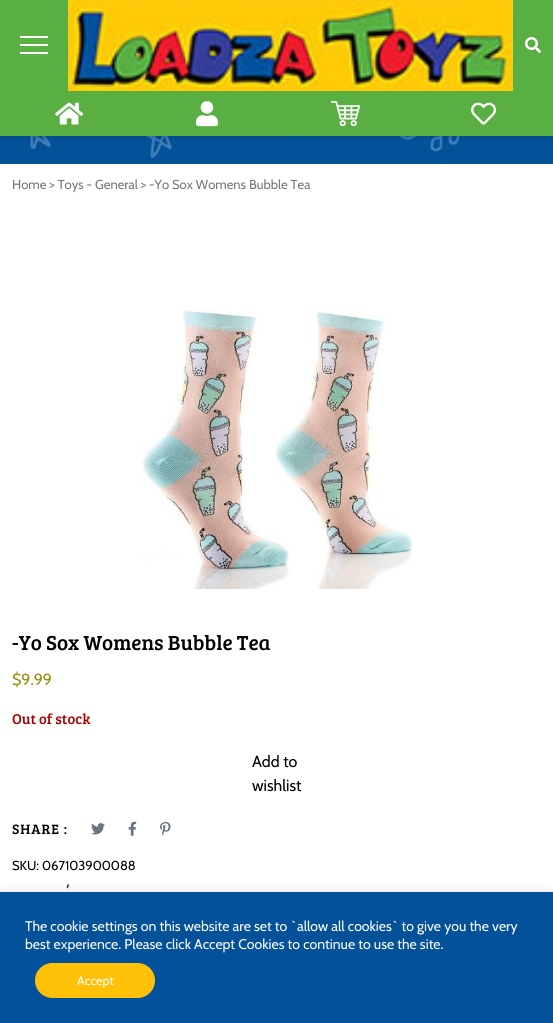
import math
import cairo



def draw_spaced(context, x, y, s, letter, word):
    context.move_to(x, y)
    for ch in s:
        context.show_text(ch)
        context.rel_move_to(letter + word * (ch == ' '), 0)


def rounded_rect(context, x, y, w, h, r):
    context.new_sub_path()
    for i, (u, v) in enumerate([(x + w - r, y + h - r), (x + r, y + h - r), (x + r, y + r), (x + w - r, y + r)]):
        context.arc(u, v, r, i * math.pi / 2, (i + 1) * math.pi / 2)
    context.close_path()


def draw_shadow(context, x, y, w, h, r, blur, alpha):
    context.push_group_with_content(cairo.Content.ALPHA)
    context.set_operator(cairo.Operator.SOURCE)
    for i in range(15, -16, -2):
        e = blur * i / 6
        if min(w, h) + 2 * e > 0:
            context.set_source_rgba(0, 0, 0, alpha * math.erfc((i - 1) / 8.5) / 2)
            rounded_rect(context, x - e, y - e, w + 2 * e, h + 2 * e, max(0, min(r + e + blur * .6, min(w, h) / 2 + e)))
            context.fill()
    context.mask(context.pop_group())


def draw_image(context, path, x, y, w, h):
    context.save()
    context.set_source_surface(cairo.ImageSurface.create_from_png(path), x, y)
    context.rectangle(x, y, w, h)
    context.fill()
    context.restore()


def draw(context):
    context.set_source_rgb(1, 1, 1)
    context.paint()
    draw_image(context, "images/7.png", 0, 136, 553, 28)
    context.set_source_rgb(0, 0, 0)
    draw_shadow(context, 0, 2, 553, 136, 0, 2, 0.1)
    context.set_source_rgb(89 / 255, 175 / 255, 66 / 255)
    context.rectangle(0, 0, 553, 136)
    context.fill()
    context.set_source_rgb(1, 1, 1)
    context.rectangle(20, 36, 28, 2)
    context.fill()
    context.rectangle(20, 44, 28, 2)
    context.fill()
    context.rectangle(20, 52, 28, 2)
    context.fill()
    draw_image(context, "images/1.png", 68, 0, 445, 91)
    draw_image(context, "images/2.png", 525, 37, 16, 16)
    draw_image(context, "images/3.png", 55, 102, 29, 23)
    draw_image(context, "images/4.png", 196, 101, 22, 26)
    draw_image(context, "images/5.png", 331, 101, 29, 25)
    draw_image(context, "images/6.png", 471, 102, 25, 23)
    draw_image(context, "images/8.png", 141, 305, 274, 284)
    draw_image(context, "images/9.png", 91, 823, 14, 12)
    draw_image(context, "images/10.png", 128, 821, 9, 15)
    draw_image(context, "images/11.png", 160, 821, 11, 15)
    context.set_source_rgb(172 / 255, 171 / 255, 171 / 255)
    draw_shadow(context, 0, 891, 553, 131, 0, 5, 0.3)
    context.set_source_rgb(3 / 255, 81 / 255, 153 / 255)
    context.rectangle(0, 892, 553, 131)
    context.fill()
    context.set_source_rgb(1, 193 / 255, 7 / 255)
    rounded_rect(context, 35, 963, 120, 35, 17.5)
    context.fill()
    context.select_font_face("Cabin")
    context.set_font_size(13)
    context.set_source_rgb(118 / 255, 118 / 255, 118 / 255)
    context.move_to(12, 189)
    context.show_text("Home > Toys - General > -Yo Sox Womens Bubble Tea")
    context.select_font_face("Bree Serif")
    context.set_font_size(21)
    context.set_source_rgb(0, 0, 0)
    context.move_to(12, 650)
    context.show_text("-Yo Sox Womens Bubble Tea")
    context.select_font_face("Cabin")
    context.set_font_size(16)
    context.set_source_rgb(149 / 255, 142 / 255, 9 / 255)
    context.move_to(12, 685)
    context.show_text("$9.99")
    context.select_font_face("Bree Serif")
    context.set_font_size(14.75)
    context.set_source_rgb(170 / 255, 0, 0)
    context.move_to(12, 724)
    context.show_text("Out of stock")
    context.select_font_face("Cabin")
    context.set_font_size(16)
    context.set_source_rgb(0, 0, 0)
    context.move_to(252, 767)
    context.show_text("Add to")
    context.move_to(252, 791)
    context.show_text("wishlist")
    context.select_font_face("Bree Serif")
    context.set_font_size(14)
    draw_spaced(context, 12, 834, "SHARE :", 1, 0)
    context.select_font_face("Cabin")
    context.set_font_size(13)
    context.move_to(12, 870)
    context.show_text("SKU: 067103900088")
    context.select_font_face("Bree Serif")
    context.set_font_size(16)
    context.set_source_rgb(64 / 255, 64 / 255, 64 / 255)
    context.move_to(66, 896)
    context.show_text("’")
    context.select_font_face("Cabin")
    context.set_font_size(14)
    context.set_source_rgb(1, 1, 1)
    context.move_to(25, 931)
    context.show_text("The cookie settings on this website are set to `allow all cookies` to give you the very")
    context.move_to(25, 949)
    context.show_text("best experience. Please click Accept Cookies to continue to use the site.")
    context.set_font_size(12.5)
    context.move_to(77, 985)
    context.show_text("Accept")


surface = cairo.ImageSurface(cairo.Format.RGB24, 553, 1023)
context = cairo.Context(surface)
options = cairo.FontOptions()
options.set_hint_metrics(cairo.HintMetrics.OFF)
options.set_hint_style(cairo.HintStyle.NONE)
context.set_font_options(options)
context.set_miter_limit(4)
draw(context)
surface.write_to_png("out.png")
